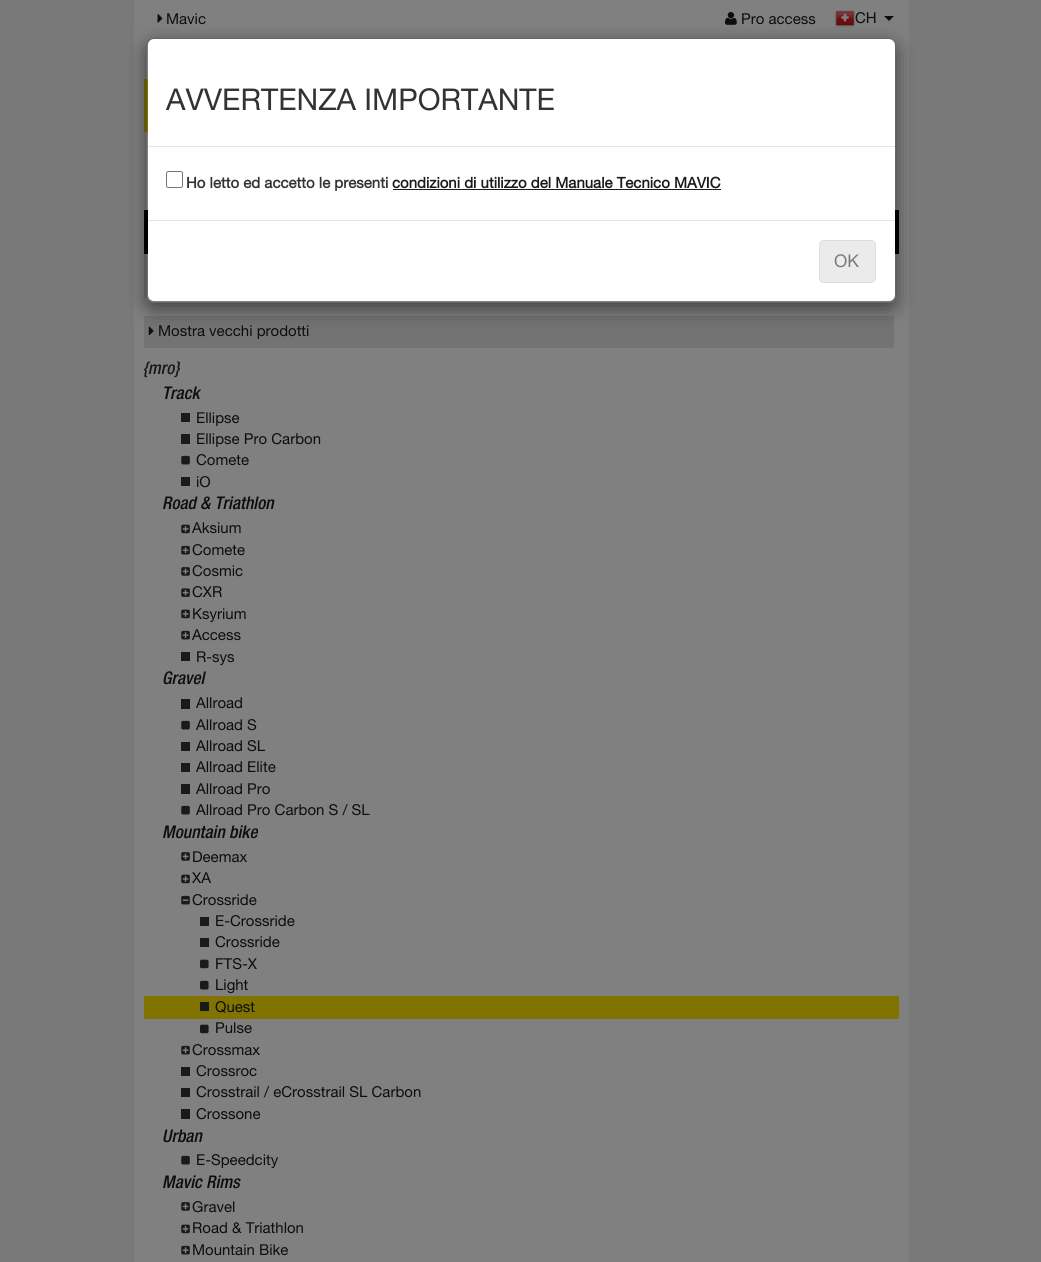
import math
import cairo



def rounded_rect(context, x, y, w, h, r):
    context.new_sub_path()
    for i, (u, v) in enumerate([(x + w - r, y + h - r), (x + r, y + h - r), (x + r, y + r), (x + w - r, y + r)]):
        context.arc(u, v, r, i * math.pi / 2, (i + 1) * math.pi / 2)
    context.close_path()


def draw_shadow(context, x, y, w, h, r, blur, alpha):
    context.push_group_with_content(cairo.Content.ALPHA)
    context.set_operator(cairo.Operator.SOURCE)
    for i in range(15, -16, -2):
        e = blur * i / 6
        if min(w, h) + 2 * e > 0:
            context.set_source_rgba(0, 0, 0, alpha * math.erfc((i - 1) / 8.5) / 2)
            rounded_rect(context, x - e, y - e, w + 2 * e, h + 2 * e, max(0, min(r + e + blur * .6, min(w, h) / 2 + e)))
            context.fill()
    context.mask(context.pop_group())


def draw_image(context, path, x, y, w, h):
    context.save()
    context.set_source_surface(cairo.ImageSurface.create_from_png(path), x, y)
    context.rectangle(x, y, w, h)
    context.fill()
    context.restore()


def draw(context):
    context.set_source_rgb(121 / 255, 121 / 255, 121 / 255)
    context.paint()
    context.set_source_rgb(128 / 255, 128 / 255, 128 / 255)
    context.rectangle(134, 0, 775, 1262)
    context.fill()
    draw_image(context, "images/1.png", 157, 14, 6, 9)
    draw_image(context, "images/2.png", 725, 12, 12, 13)
    draw_image(context, "images/3.png", 835, 10, 20, 18)
    context.set_source_rgb(13 / 255, 13 / 255, 13 / 255)
    context.new_path()
    context.move_to(884, 16)
    context.line_to(894, 16)
    context.line_to(889, 21)
    context.close_path()
    context.fill()
    draw_image(context, "images/4.png", 144, 79, 4, 54)
    context.set_source_rgb(0, 0, 0)
    context.rectangle(144, 210, 755, 44)
    context.fill()
    context.set_source_rgb(115 / 255, 115 / 255, 115 / 255)
    context.rectangle(144, 254, 5, 44)
    context.fill()
    context.rectangle(144, 316, 750, 32)
    context.fill()
    draw_image(context, "images/5.png", 148, 326, 6, 10)
    context.save()
    context.set_fill_rule(cairo.FillRule.EVEN_ODD)
    context.new_path()
    context.move_to(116, 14)
    context.line_to(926, 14)
    context.line_to(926, 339)
    context.line_to(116, 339)
    context.close_path()
    context.move_to(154, 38)
    context.line_to(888, 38)
    context.curve_to(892.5, 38, 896, 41.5, 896, 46)
    context.line_to(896, 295)
    context.curve_to(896, 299.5, 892.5, 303, 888, 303)
    context.line_to(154, 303)
    context.curve_to(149.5, 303, 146, 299.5, 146, 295)
    context.line_to(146, 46)
    context.curve_to(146, 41.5, 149.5, 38, 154, 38)
    context.close_path()
    context.clip()
    context.set_source_rgb(0, 0, 0)
    draw_shadow(context, 146, 44, 750, 265, 8, 9.5, 0.5)
    context.restore()
    context.set_source_rgb(1, 1, 1)
    rounded_rect(context, 148, 39, 747, 262, 6)
    context.fill()
    rounded_rect(context, 146.5, 38.5, 749, 264, 7.5)
    context.set_source_rgba(0, 0, 0, 0.2)
    context.set_line_width(1)
    context.stroke()
    context.set_source_rgb(229 / 255, 229 / 255, 229 / 255)
    context.rectangle(148, 146, 747, 1)
    context.fill()
    rounded_rect(context, 166.5, 171.5, 16, 16, 2)
    context.set_source_rgb(118 / 255, 118 / 255, 118 / 255)
    context.stroke()
    context.set_source_rgb(26 / 255, 26 / 255, 26 / 255)
    context.rectangle(393, 189, 328, 1)
    context.fill()
    context.set_source_rgb(229 / 255, 229 / 255, 229 / 255)
    context.rectangle(148, 220, 747, 1)
    context.fill()
    context.set_source_rgb(235 / 255, 235 / 255, 235 / 255)
    rounded_rect(context, 819.5, 240.5, 56, 42, 4.5)
    context.fill_preserve()
    context.set_source_rgb(222 / 255, 222 / 255, 222 / 255)
    context.stroke()
    context.set_source_rgb(26 / 255, 26 / 255, 26 / 255)
    context.rectangle(181, 413, 9, 9)
    context.fill()
    context.rectangle(181, 434, 9, 10)
    context.fill()
    draw_image(context, "images/6.png", 181, 455, 9, 10)
    context.rectangle(181, 477, 9, 9)
    context.fill()
    draw_image(context, "images/7.png", 181, 524, 9, 10)
    draw_image(context, "images/8.png", 181, 545, 9, 10)
    draw_image(context, "images/9.png", 181, 567, 9, 9)
    draw_image(context, "images/10.png", 181, 588, 9, 9)
    draw_image(context, "images/7.png", 181, 609, 9, 10)
    draw_image(context, "images/8.png", 181, 630, 9, 10)
    context.rectangle(181, 652, 9, 9)
    context.fill()
    context.rectangle(181, 699, 9, 10)
    context.fill()
    draw_image(context, "images/6.png", 181, 720, 9, 10)
    context.rectangle(181, 742, 9, 9)
    context.fill()
    context.rectangle(181, 763, 9, 9)
    context.fill()
    context.rectangle(181, 784, 9, 10)
    context.fill()
    draw_image(context, "images/6.png", 181, 805, 9, 10)
    draw_image(context, "images/9.png", 181, 852, 9, 9)
    draw_image(context, "images/7.png", 181, 874, 9, 10)
    draw_image(context, "images/11.png", 181, 895, 9, 10)
    context.rectangle(200, 917, 9, 9)
    context.fill()
    context.rectangle(200, 938, 9, 9)
    context.fill()
    draw_image(context, "images/12.png", 200, 959, 9, 10)
    draw_image(context, "images/13.png", 200, 980, 9, 10)
    context.set_source_rgb(128 / 255, 115 / 255, 0)
    context.rectangle(144, 996, 755, 23)
    context.fill()
    context.set_source_rgb(26 / 255, 26 / 255, 26 / 255)
    context.rectangle(200, 1002, 9, 9)
    context.fill()
    draw_image(context, "images/12.png", 200, 1024, 9, 10)
    draw_image(context, "images/8.png", 181, 1045, 9, 10)
    context.rectangle(181, 1067, 9, 9)
    context.fill()
    context.rectangle(181, 1088, 9, 9)
    context.fill()
    context.rectangle(181, 1109, 9, 10)
    context.fill()
    draw_image(context, "images/6.png", 181, 1155, 9, 10)
    draw_image(context, "images/9.png", 181, 1202, 9, 9)
    draw_image(context, "images/7.png", 181, 1224, 9, 10)
    draw_image(context, "images/8.png", 181, 1245, 9, 10)
    context.select_font_face("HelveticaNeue")
    context.set_font_size(15)
    context.set_source_rgb(13 / 255, 13 / 255, 13 / 255)
    context.move_to(166, 24)
    context.show_text("Mavic")
    context.move_to(741, 24)
    context.show_text("Pro access")
    context.move_to(855, 23)
    context.show_text("CH")
    context.set_font_size(30)
    context.set_source_rgb(51 / 255, 51 / 255, 51 / 255)
    context.move_to(166, 110)
    context.show_text("AVVERTENZA IMPORTANTE")
    context.select_font_face("HelveticaNeue", cairo.FontSlant.NORMAL, cairo.FontWeight.BOLD)
    context.set_font_size(15)
    context.move_to(186, 188)
    context.show_text("Ho letto ed accetto le presenti")
    context.set_source_rgb(26 / 255, 26 / 255, 26 / 255)
    context.move_to(392, 188)
    context.show_text("condizioni di utilizzo del Manuale Tecnico MAVIC")
    context.select_font_face("HelveticaNeue")
    context.set_font_size(17.5)
    context.set_source_rgb(122 / 255, 122 / 255, 122 / 255)
    context.move_to(834, 267)
    context.show_text("OK")
    context.set_font_size(15)
    context.set_source_rgb(13 / 255, 13 / 255, 13 / 255)
    context.move_to(158, 336)
    context.show_text("Mostra vecchi prodotti")
    context.select_font_face("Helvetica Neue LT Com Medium", cairo.FontSlant.ITALIC)
    context.set_font_size(17.5)
    context.set_source_rgb(26 / 255, 26 / 255, 26 / 255)
    context.move_to(143, 374)
    context.show_text("{mro}")
    context.set_source_rgb(13 / 255, 13 / 255, 13 / 255)
    context.move_to(162, 399)
    context.show_text("Track")
    context.select_font_face("HelveticaNeue")
    context.set_font_size(15)
    context.move_to(196, 423)
    context.show_text("Ellipse")
    context.move_to(196, 444)
    context.show_text("Ellipse Pro Carbon")
    context.move_to(196, 465)
    context.show_text("Comete")
    context.move_to(196, 487)
    context.show_text("iO")
    context.select_font_face("Helvetica Neue LT Com Medium", cairo.FontSlant.ITALIC)
    context.set_font_size(17.5)
    context.move_to(162, 509)
    context.show_text("Road & Triathlon")
    context.select_font_face("HelveticaNeue")
    context.set_font_size(15)
    context.move_to(192, 533)
    context.show_text("Aksium")
    context.move_to(192, 555)
    context.show_text("Comete")
    context.move_to(192, 576)
    context.show_text("Cosmic")
    context.move_to(192, 597)
    context.show_text("CXR")
    context.move_to(192, 619)
    context.show_text("Ksyrium")
    context.move_to(192, 640)
    context.show_text("Access")
    context.move_to(196, 662)
    context.show_text("R-sys")
    context.select_font_face("Helvetica Neue LT Com Medium", cairo.FontSlant.ITALIC)
    context.set_font_size(17.5)
    context.move_to(162, 684)
    context.show_text("Gravel")
    context.select_font_face("HelveticaNeue")
    context.set_font_size(15)
    context.move_to(196, 708)
    context.show_text("Allroad")
    context.move_to(196, 730)
    context.show_text("Allroad S")
    context.move_to(196, 751)
    context.show_text("Allroad SL")
    context.move_to(196, 772)
    context.show_text("Allroad Elite")
    context.move_to(196, 794)
    context.show_text("Allroad Pro")
    context.move_to(196, 815)
    context.show_text("Allroad Pro Carbon S / SL")
    context.select_font_face("Helvetica Neue LT Com Medium", cairo.FontSlant.ITALIC)
    context.set_font_size(17.5)
    context.move_to(162, 838)
    context.show_text("Mountain bike")
    context.select_font_face("HelveticaNeue")
    context.set_font_size(15)
    context.move_to(192, 862)
    context.show_text("Deemax")
    context.move_to(192, 883)
    context.show_text("XA")
    context.move_to(192, 905)
    context.show_text("Crossride")
    context.move_to(215, 926)
    context.show_text("E-Crossride")
    context.move_to(215, 947)
    context.show_text("Crossride")
    context.move_to(215, 969)
    context.show_text("FTS-X")
    context.move_to(215, 990)
    context.show_text("Light")
    context.move_to(215, 1012)
    context.show_text("Quest")
    context.move_to(215, 1033)
    context.show_text("Pulse")
    context.move_to(192, 1055)
    context.show_text("Crossmax")
    context.move_to(196, 1076)
    context.show_text("Crossroc")
    context.move_to(196, 1097)
    context.show_text("Crosstrail / eCrosstrail SL Carbon")
    context.move_to(196, 1119)
    context.show_text("Crossone")
    context.select_font_face("Helvetica Neue LT Com Medium", cairo.FontSlant.ITALIC)
    context.set_font_size(17.5)
    context.move_to(162, 1142)
    context.show_text("Urban")
    context.select_font_face("HelveticaNeue")
    context.set_font_size(15)
    context.move_to(196, 1165)
    context.show_text("E-Speedcity")
    context.select_font_face("Helvetica Neue LT Com Medium", cairo.FontSlant.ITALIC)
    context.set_font_size(17.5)
    context.move_to(162, 1188)
    context.show_text("Mavic Rims")
    context.select_font_face("HelveticaNeue")
    context.set_font_size(15)
    context.move_to(192, 1212)
    context.show_text("Gravel")
    context.move_to(192, 1233)
    context.show_text("Road & Triathlon")
    context.move_to(192, 1255)
    context.show_text("Mountain Bike")


surface = cairo.ImageSurface(cairo.Format.RGB24, 1041, 1262)
context = cairo.Context(surface)
options = cairo.FontOptions()
options.set_hint_metrics(cairo.HintMetrics.OFF)
options.set_hint_style(cairo.HintStyle.NONE)
context.set_font_options(options)
context.set_miter_limit(4)
draw(context)
surface.write_to_png("out.png")
